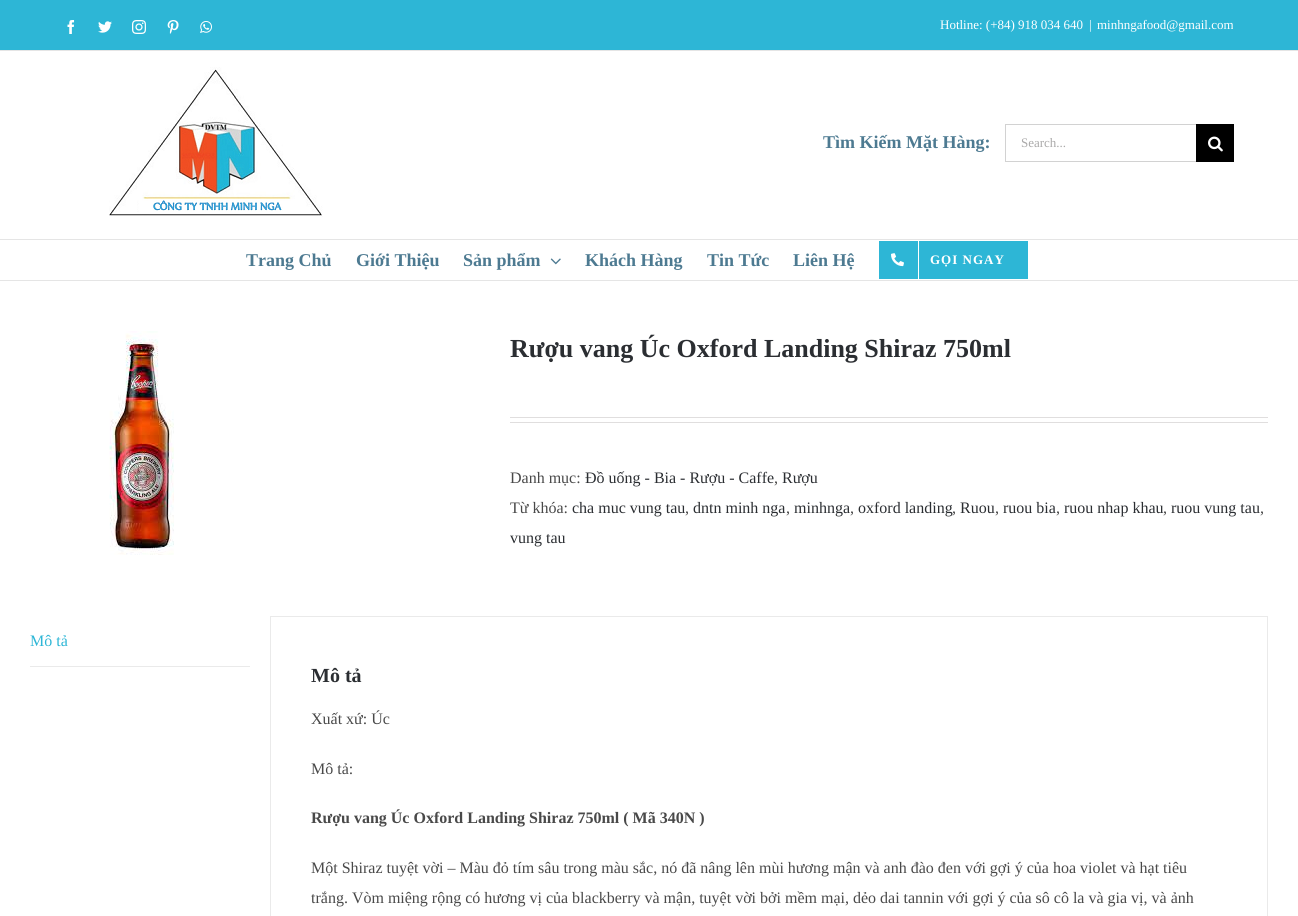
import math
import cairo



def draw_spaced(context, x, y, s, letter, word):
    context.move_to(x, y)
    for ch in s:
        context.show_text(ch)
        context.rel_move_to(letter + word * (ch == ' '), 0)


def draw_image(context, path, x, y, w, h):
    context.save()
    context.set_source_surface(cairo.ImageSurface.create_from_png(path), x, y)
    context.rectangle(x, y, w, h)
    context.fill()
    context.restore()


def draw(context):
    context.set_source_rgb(1, 1, 1)
    context.paint()
    context.set_source_rgb(45 / 255, 182 / 255, 214 / 255)
    context.rectangle(0, 0, 1298, 50)
    context.fill()
    context.set_source_rgb(229 / 255, 229 / 255, 229 / 255)
    context.rectangle(0, 50, 1298, 1)
    context.fill()
    draw_image(context, "images/1.png", 67, 20, 8, 14)
    draw_image(context, "images/2.png", 98, 21, 14, 12)
    draw_image(context, "images/3.png", 132, 20, 14, 14)
    draw_image(context, "images/4.png", 167, 20, 12, 14)
    draw_image(context, "images/5.png", 200, 21, 12, 12)
    context.rectangle(0, 239, 1298, 1)
    context.fill()
    draw_image(context, "images/6.png", 109, 67, 214, 150)
    context.set_source_rgb(210 / 255, 210 / 255, 210 / 255)
    context.rectangle(1005, 124, 191, 1)
    context.fill()
    context.rectangle(1005, 161, 191, 1)
    context.fill()
    context.rectangle(1005, 124, 1, 38)
    context.fill()
    context.set_source_rgb(0, 0, 0)
    context.rectangle(1196, 124, 38, 38)
    context.fill()
    draw_image(context, "images/7.png", 1208, 136, 15, 16)
    context.set_source_rgb(229 / 255, 229 / 255, 229 / 255)
    context.rectangle(0, 280, 1298, 1)
    context.fill()
    draw_image(context, "images/8.png", 550, 258, 11, 7)
    context.set_source_rgb(45 / 255, 182 / 255, 214 / 255)
    context.rectangle(879, 241, 149, 38)
    context.fill()
    context.set_source_rgb(1, 1, 1)
    context.rectangle(918, 241, 1, 38)
    context.fill()
    draw_image(context, "images/9.png", 891, 253, 13, 14)
    draw_image(context, "images/10.png", 109, 331, 65, 224)
    context.set_source_rgb(224 / 255, 222 / 255, 222 / 255)
    context.rectangle(510, 417, 758, 1)
    context.fill()
    context.rectangle(510, 422, 758, 1)
    context.fill()
    context.set_source_rgb(234 / 255, 234 / 255, 234 / 255)
    context.rectangle(30, 666, 220, 1)
    context.fill()
    context.rectangle(270.5, 616.5, 997, 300)
    context.set_line_width(1)
    context.stroke()
    context.select_font_face("Liberation Serif")
    context.set_font_size(13)
    context.set_source_rgb(1, 1, 1)
    context.move_to(940, 29)
    context.show_text("Hotline: (+84) 918 034 640")
    context.move_to(1089, 29)
    context.show_text("|")
    context.move_to(1097, 29)
    context.show_text("minhngafood@gmail.com")
    context.select_font_face("Liberation Serif", cairo.FontSlant.NORMAL, cairo.FontWeight.BOLD)
    context.set_font_size(18)
    context.set_source_rgb(77 / 255, 122 / 255, 145 / 255)
    context.move_to(823, 148)
    context.show_text("Tìm Kiếm Mặt Hàng:")
    context.select_font_face("Liberation Serif")
    context.set_font_size(13)
    context.set_source_rgb(170 / 255, 169 / 255, 169 / 255)
    context.move_to(1021, 147)
    context.show_text("Search...")
    context.select_font_face("Liberation Serif", cairo.FontSlant.NORMAL, cairo.FontWeight.BOLD)
    context.set_font_size(18)
    context.set_source_rgb(77 / 255, 122 / 255, 145 / 255)
    context.move_to(246, 266)
    context.show_text("Trang Chủ")
    context.move_to(356, 266)
    context.show_text("Giới Thiệu")
    context.move_to(463, 266)
    context.show_text("Sản phẩm")
    context.move_to(585, 266)
    context.show_text("Khách Hàng")
    context.move_to(707, 266)
    context.show_text("Tin Tức")
    context.move_to(793, 266)
    context.show_text("Liên Hệ")
    context.set_font_size(13)
    context.set_source_rgb(1, 1, 1)
    draw_spaced(context, 930, 264, "GỌI NGAY", 1, 0)
    context.set_font_size(26)
    context.set_source_rgb(43 / 255, 46 / 255, 50 / 255)
    context.move_to(510, 357)
    context.show_text("Rượu vang Úc Oxford Landing Shiraz 750ml")
    context.select_font_face("Liberation Serif")
    context.set_font_size(16)
    context.set_source_rgb(73 / 255, 73 / 255, 73 / 255)
    context.move_to(510, 483)
    context.show_text("Danh mục:")
    context.set_source_rgb(43 / 255, 46 / 255, 50 / 255)
    context.move_to(585, 483)
    context.show_text("Đồ uống - Bia - Rượu - Caffe")
    context.set_source_rgb(73 / 255, 73 / 255, 73 / 255)
    context.move_to(774, 483)
    context.show_text(",")
    context.set_source_rgb(43 / 255, 46 / 255, 50 / 255)
    context.move_to(782, 483)
    context.show_text("Rượu")
    context.set_source_rgb(73 / 255, 73 / 255, 73 / 255)
    context.move_to(510, 513)
    context.show_text("Từ khóa:")
    context.set_source_rgb(43 / 255, 46 / 255, 50 / 255)
    context.move_to(572, 513)
    context.show_text("cha muc vung tau")
    context.set_source_rgb(73 / 255, 73 / 255, 73 / 255)
    context.move_to(685, 513)
    context.show_text(",")
    context.set_source_rgb(43 / 255, 46 / 255, 50 / 255)
    context.move_to(693, 513)
    context.show_text("dntn minh nga")
    context.set_source_rgb(73 / 255, 73 / 255, 73 / 255)
    context.move_to(786, 513)
    context.show_text(",")
    context.set_source_rgb(43 / 255, 46 / 255, 50 / 255)
    context.move_to(794, 513)
    context.show_text("minhnga")
    context.set_source_rgb(73 / 255, 73 / 255, 73 / 255)
    context.move_to(850, 513)
    context.show_text(",")
    context.set_source_rgb(43 / 255, 46 / 255, 50 / 255)
    context.move_to(858, 513)
    context.show_text("oxford landing")
    context.set_source_rgb(73 / 255, 73 / 255, 73 / 255)
    context.move_to(952, 513)
    context.show_text(",")
    context.set_source_rgb(43 / 255, 46 / 255, 50 / 255)
    context.move_to(960, 513)
    context.show_text("Ruou")
    context.set_source_rgb(73 / 255, 73 / 255, 73 / 255)
    context.move_to(995, 513)
    context.show_text(",")
    context.set_source_rgb(43 / 255, 46 / 255, 50 / 255)
    context.move_to(1003, 513)
    context.show_text("ruou bia")
    context.set_source_rgb(73 / 255, 73 / 255, 73 / 255)
    context.move_to(1056, 513)
    context.show_text(",")
    context.set_source_rgb(43 / 255, 46 / 255, 50 / 255)
    context.move_to(1064, 513)
    context.show_text("ruou nhap khau")
    context.set_source_rgb(73 / 255, 73 / 255, 73 / 255)
    context.move_to(1163, 513)
    context.show_text(",")
    context.set_source_rgb(43 / 255, 46 / 255, 50 / 255)
    context.move_to(1171, 513)
    context.show_text("ruou vung tau")
    context.set_source_rgb(73 / 255, 73 / 255, 73 / 255)
    context.move_to(1260, 513)
    context.show_text(",")
    context.set_source_rgb(43 / 255, 46 / 255, 50 / 255)
    context.move_to(510, 543)
    context.show_text("vung tau")
    context.set_source_rgb(45 / 255, 182 / 255, 214 / 255)
    context.move_to(30, 646)
    context.show_text("Mô tả")
    context.select_font_face("Liberation Serif", cairo.FontSlant.NORMAL, cairo.FontWeight.BOLD)
    context.set_font_size(20)
    context.set_source_rgb(43 / 255, 46 / 255, 50 / 255)
    context.move_to(311, 682)
    context.show_text("Mô tả")
    context.select_font_face("Liberation Serif")
    context.set_font_size(16)
    context.set_source_rgb(73 / 255, 73 / 255, 73 / 255)
    context.move_to(311, 724)
    context.show_text("Xuất xứ: Úc")
    context.move_to(311, 774)
    context.show_text("Mô tả:")
    context.select_font_face("Liberation Serif", cairo.FontSlant.NORMAL, cairo.FontWeight.BOLD)
    context.move_to(311, 823)
    context.show_text("Rượu vang Úc Oxford Landing Shiraz 750ml ( Mã 340N )")
    context.select_font_face("Liberation Serif")
    context.move_to(311, 873)
    context.show_text("Một Shiraz tuyệt vời – Màu đỏ tím sâu trong màu sắc, nó đã nâng lên mùi hương mận và anh đào đen với gợi ý của hoa violet và hạt tiêu")
    context.move_to(311, 903)
    context.show_text("trắng. Vòm miệng rộng có hương vị của blackberry và mận, tuyệt vời bởi mềm mại, dẻo dai tannin với gợi ý của sô cô la và gia vị, và ảnh")


surface = cairo.ImageSurface(cairo.Format.RGB24, 1298, 916)
context = cairo.Context(surface)
options = cairo.FontOptions()
options.set_hint_metrics(cairo.HintMetrics.OFF)
options.set_hint_style(cairo.HintStyle.NONE)
context.set_font_options(options)
context.set_miter_limit(4)
draw(context)
surface.write_to_png("out.png")
